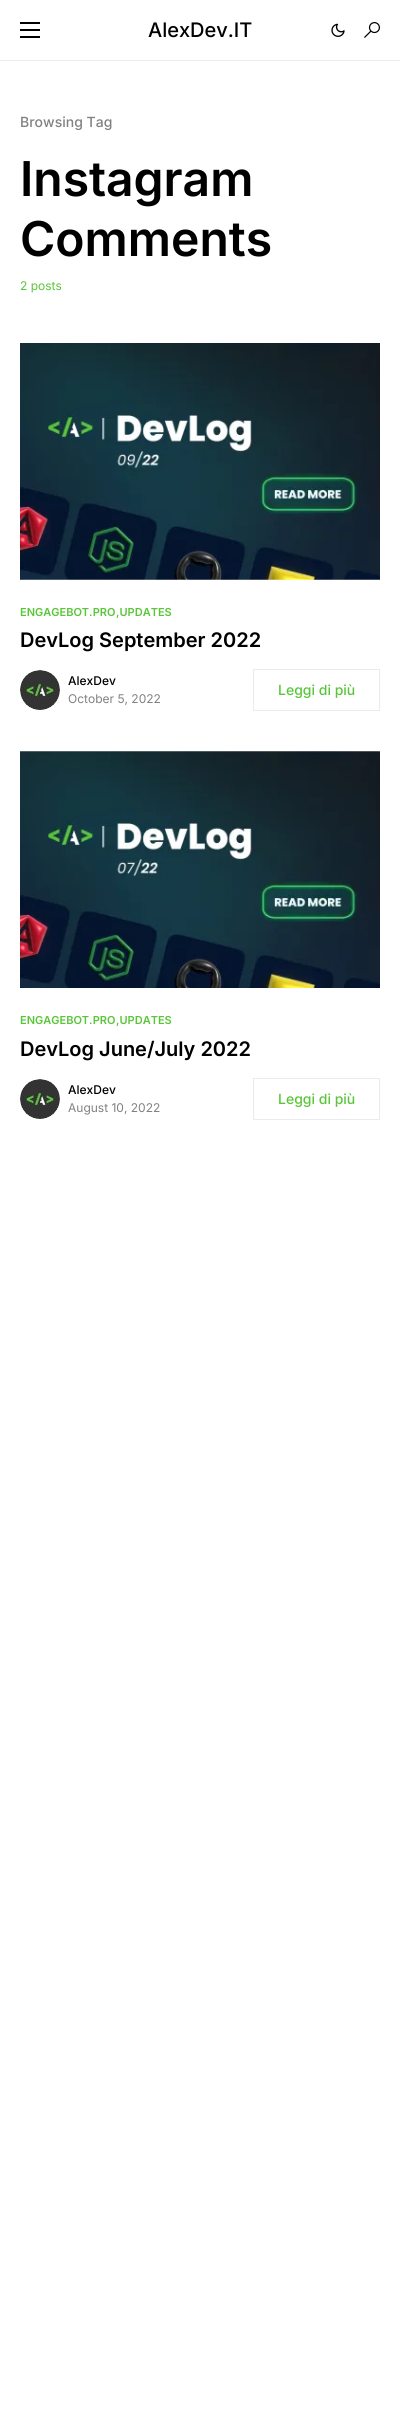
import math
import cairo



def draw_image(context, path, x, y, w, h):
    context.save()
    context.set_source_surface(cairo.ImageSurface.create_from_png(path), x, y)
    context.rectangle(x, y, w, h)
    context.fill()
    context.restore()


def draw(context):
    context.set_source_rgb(1, 1, 1)
    context.paint()
    context.set_source_rgb(233 / 255, 236 / 255, 239 / 255)
    context.rectangle(0, 60, 400, 1)
    context.fill()
    context.set_source_rgb(0, 0, 0)
    context.rectangle(20, 22, 20, 2)
    context.fill()
    context.rectangle(20, 29, 20, 2)
    context.fill()
    context.rectangle(20, 36, 20, 2)
    context.fill()
    draw_image(context, "images/1.png", 331, 23, 14, 14)
    draw_image(context, "images/2.png", 364, 22, 16, 16)
    draw_image(context, "images/3.png", 20, 343, 360, 237)
    draw_image(context, "images/4.png", 20, 670, 40, 40)
    context.rectangle(253.5, 669.5, 126, 41)
    context.set_source_rgb(233 / 255, 236 / 255, 239 / 255)
    context.set_line_width(1)
    context.stroke()
    draw_image(context, "images/5.png", 20, 751, 360, 237)
    draw_image(context, "images/4.png", 20, 1079, 40, 40)
    context.rectangle(253.5, 1078.5, 126, 41)
    context.stroke()
    context.select_font_face("Inter Medium")
    context.set_font_size(20)
    context.set_source_rgb(0, 0, 0)
    context.move_to(148, 37)
    context.show_text("AlexDev.IT")
    context.set_font_size(14)
    context.set_source_rgb(129 / 255, 129 / 255, 129 / 255)
    context.move_to(20, 127)
    context.show_text("Browsing Tag")
    context.select_font_face("Inter SemiBold")
    context.set_font_size(48)
    context.set_source_rgb(0, 0, 0)
    context.move_to(20, 196)
    context.show_text("Instagram")
    context.move_to(20, 256)
    context.show_text("Comments")
    context.select_font_face("Inter")
    context.set_font_size(12)
    context.set_source_rgb(89 / 255, 198 / 255, 57 / 255)
    context.move_to(20, 290)
    context.show_text("2 posts")
    context.select_font_face("Inter SemiBold")
    context.set_font_size(11)
    context.move_to(20, 616)
    context.show_text("ENGAGEBOT.PRO")
    context.move_to(116, 616)
    context.show_text(",UPDATES")
    context.set_font_size(20)
    context.set_source_rgb(0, 0, 0)
    context.move_to(20, 647)
    context.show_text("DevLog September 2022")
    context.select_font_face("Inter Medium")
    context.set_font_size(12)
    context.move_to(68, 685)
    context.show_text("AlexDev")
    context.select_font_face("Inter")
    context.set_source_rgb(129 / 255, 129 / 255, 129 / 255)
    context.move_to(68, 703)
    context.show_text("October 5, 2022")
    context.select_font_face("Inter Medium")
    context.set_font_size(14)
    context.set_source_rgb(89 / 255, 198 / 255, 57 / 255)
    context.move_to(278, 695)
    context.show_text("Leggi di più")
    context.select_font_face("Inter SemiBold")
    context.set_font_size(11)
    context.move_to(20, 1024)
    context.show_text("ENGAGEBOT.PRO")
    context.move_to(116, 1024)
    context.show_text(",UPDATES")
    context.set_font_size(20)
    context.set_source_rgb(0, 0, 0)
    context.move_to(20, 1056)
    context.show_text("DevLog June/July 2022")
    context.select_font_face("Inter Medium")
    context.set_font_size(12)
    context.move_to(68, 1094)
    context.show_text("AlexDev")
    context.select_font_face("Inter")
    context.set_source_rgb(129 / 255, 129 / 255, 129 / 255)
    context.move_to(68, 1112)
    context.show_text("August 10, 2022")
    context.select_font_face("Inter Medium")
    context.set_font_size(14)
    context.set_source_rgb(89 / 255, 198 / 255, 57 / 255)
    context.move_to(278, 1104)
    context.show_text("Leggi di più")


surface = cairo.ImageSurface(cairo.Format.RGB24, 400, 2430)
context = cairo.Context(surface)
options = cairo.FontOptions()
options.set_hint_metrics(cairo.HintMetrics.OFF)
options.set_hint_style(cairo.HintStyle.NONE)
context.set_font_options(options)
context.set_miter_limit(4)
draw(context)
surface.write_to_png("out.png")
